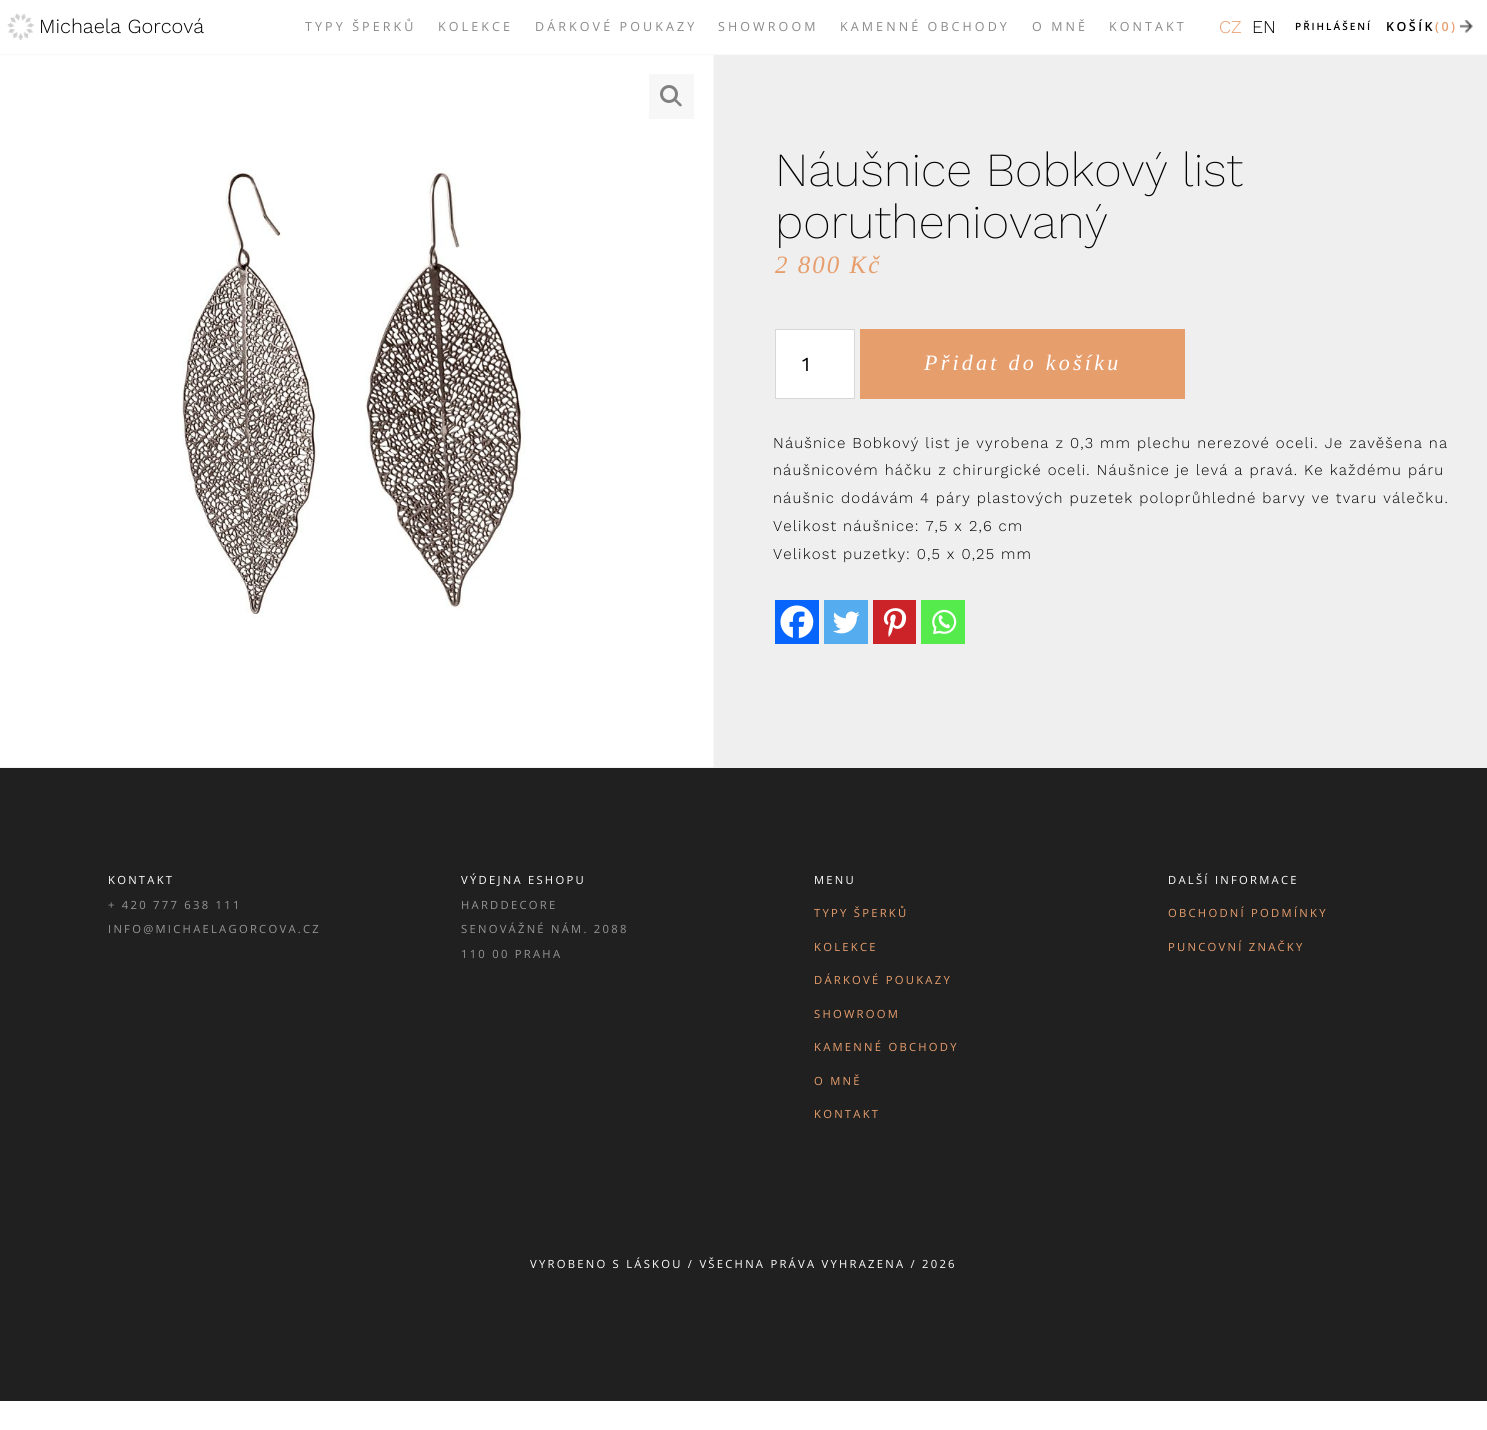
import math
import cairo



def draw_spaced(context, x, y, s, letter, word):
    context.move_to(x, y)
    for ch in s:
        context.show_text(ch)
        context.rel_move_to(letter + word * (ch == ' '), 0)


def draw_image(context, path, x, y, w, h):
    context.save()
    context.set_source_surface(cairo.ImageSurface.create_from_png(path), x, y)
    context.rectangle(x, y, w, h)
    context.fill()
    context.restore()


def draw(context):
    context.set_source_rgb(1, 1, 1)
    context.paint()
    context.set_source_rgb(249 / 255, 249 / 255, 249 / 255)
    context.rectangle(0, 54, 1487, 1)
    context.fill()
    draw_image(context, "images/1.png", 7, 13, 27, 27)
    draw_image(context, "images/2.png", 1460, 20, 13, 13)
    context.set_source_rgb(239 / 255, 239 / 255, 239 / 255)
    context.rectangle(0, 55, 1487, 713)
    context.fill()
    draw_image(context, "images/3.png", 0, 55, 714, 713)
    context.set_source_rgb(247 / 255, 247 / 255, 247 / 255)
    context.rectangle(649, 74, 45, 45)
    context.fill()
    context.arc(669, 94, 7.5, 0, 2 * math.pi)
    context.set_source_rgb(128 / 255, 128 / 255, 128 / 255)
    context.set_line_width(3)
    context.stroke()
    context.new_path()
    context.move_to(674, 99)
    context.curve_to(675.5, 97.5, 678, 101, 678.5, 101.5)
    context.curve_to(679.5, 102.5, 682.5, 104.5, 681.5, 106)
    context.curve_to(680, 107.5, 677.5, 104, 677, 103.5)
    context.curve_to(676, 102.5, 673, 100.5, 674, 99)
    context.close_path()
    context.fill()
    context.set_source_rgb(1, 1, 1)
    context.rectangle(775.5, 329.5, 79, 69)
    context.fill_preserve()
    context.set_source_rgb(215 / 255, 215 / 255, 215 / 255)
    context.set_line_width(1)
    context.stroke()
    context.set_source_rgb(231 / 255, 158 / 255, 109 / 255)
    context.rectangle(860, 329, 325, 70)
    context.fill()
    context.set_source_rgb(7 / 255, 101 / 255, 254 / 255)
    context.rectangle(775, 600, 44, 44)
    context.fill()
    draw_image(context, "images/4.png", 780, 605, 34, 34)
    context.set_source_rgb(85 / 255, 172 / 255, 238 / 255)
    context.rectangle(824, 600, 44, 44)
    context.fill()
    draw_image(context, "images/5.png", 833, 611, 27, 23)
    context.set_source_rgb(204 / 255, 35 / 255, 41 / 255)
    context.rectangle(873, 600, 43, 44)
    context.fill()
    draw_image(context, "images/6.png", 883, 608, 24, 29)
    context.set_source_rgb(85 / 255, 235 / 255, 76 / 255)
    context.rectangle(921, 600, 44, 44)
    context.fill()
    draw_image(context, "images/7.png", 932, 609, 25, 26)
    context.set_source_rgb(32 / 255, 32 / 255, 32 / 255)
    context.rectangle(0, 768, 1487, 633)
    context.fill()
    context.select_font_face("Work Sans Light")
    context.set_font_size(20)
    context.set_source_rgb(0, 0, 0)
    context.move_to(39, 33)
    context.show_text("Michaela Gorcová")
    context.select_font_face("Open Sans")
    context.set_font_size(12.5)
    context.set_source_rgb(137 / 255, 137 / 255, 137 / 255)
    draw_spaced(context, 305, 31, "TYPY ŠPERKŮ", 3.1, 0)
    draw_spaced(context, 438, 31, "KOLEKCE", 3.1, 0)
    draw_spaced(context, 535, 31, "DÁRKOVÉ POUKAZY", 3.1, 0)
    draw_spaced(context, 718, 31, "SHOWROOM", 3.1, 0)
    draw_spaced(context, 840, 31, "KAMENNÉ OBCHODY", 3.1, 0)
    draw_spaced(context, 1032, 31, "O MNĚ", 3.1, 0)
    draw_spaced(context, 1109, 31, "KONTAKT", 3.1, 0)
    context.select_font_face("Open Sans SemiBold")
    context.set_font_size(10)
    context.set_source_rgb(0, 0, 0)
    draw_spaced(context, 1295, 30, "PŘIHLÁŠENÍ", 2, 0)
    context.set_font_size(12.5)
    draw_spaced(context, 1386, 31, "KOŠÍK", 2.5, 0)
    context.set_source_rgb(231 / 255, 158 / 255, 109 / 255)
    draw_spaced(context, 1435, 31, "(0)", 2.5, 0)
    context.select_font_face("Work Sans Light")
    context.set_font_size(18)
    context.move_to(1219, 33)
    context.show_text("CZ")
    context.set_source_rgb(0, 0, 0)
    context.move_to(1252, 33)
    context.show_text("EN")
    context.select_font_face("Work Sans ExtraLight")
    context.set_font_size(47.5)
    context.move_to(775, 186)
    context.show_text("Náušnice Bobkový list")
    context.move_to(775, 238)
    context.show_text("porutheniovaný")
    context.select_font_face("Liberation Serif", cairo.FontSlant.ITALIC)
    context.set_font_size(25)
    context.set_source_rgb(231 / 255, 158 / 255, 109 / 255)
    draw_spaced(context, 775, 273, "2 800 Kč", 2, 0)
    context.select_font_face("Work Sans")
    context.set_font_size(20)
    context.set_source_rgb(0, 0, 0)
    context.move_to(802, 371)
    context.show_text("1")
    context.select_font_face("Liberation Serif", cairo.FontSlant.ITALIC)
    context.set_font_size(22)
    context.set_source_rgb(1, 1, 1)
    draw_spaced(context, 924, 370, "Přidat do košíku", 3.25, 0)
    context.select_font_face("Work Sans Light")
    context.set_font_size(15)
    context.set_source_rgb(0, 0, 0)
    draw_spaced(context, 773, 448, "Náušnice Bobkový list je vyrobena z 0,3 mm plechu nerezové oceli. Je zavěšena na", 1.15, 0)
    draw_spaced(context, 773, 475, "náušnicovém háčku z chirurgické oceli. Náušnice je levá a pravá. Ke každému páru", 1.15, 0)
    draw_spaced(context, 773, 503, "náušnic dodávám 4 páry plastových puzetek poloprůhledné barvy ve tvaru válečku.", 1.15, 0)
    draw_spaced(context, 773, 531, "Velikost náušnice: 7,5 x 2,6 cm", 1.15, 0)
    draw_spaced(context, 773, 559, "Velikost puzetky: 0,5 x 0,25 mm", 1.15, 0)
    context.select_font_face("Open Sans")
    context.set_font_size(11.25)
    context.set_source_rgb(1, 1, 1)
    draw_spaced(context, 108, 884, "KONTAKT", 2.25, 0)
    context.set_source_rgb(149 / 255, 149 / 255, 149 / 255)
    draw_spaced(context, 108, 909, "+ 420 777 638 111", 2.25, 0)
    draw_spaced(context, 108, 933, "INFO@MICHAELAGORCOVA.CZ", 2.25, 0)
    context.set_source_rgb(1, 1, 1)
    draw_spaced(context, 461, 884, "VÝDEJNA ESHOPU", 2.25, 0)
    context.set_source_rgb(149 / 255, 149 / 255, 149 / 255)
    draw_spaced(context, 461, 909, "HARDDECORE", 2.25, 0)
    draw_spaced(context, 461, 933, "SENOVÁŽNÉ NÁM. 2088", 2.25, 0)
    draw_spaced(context, 461, 958, "110 00 PRAHA", 2.25, 0)
    context.set_source_rgb(1, 1, 1)
    draw_spaced(context, 814, 884, "MENU", 2.25, 0)
    context.set_source_rgb(231 / 255, 158 / 255, 109 / 255)
    draw_spaced(context, 814, 917, "TYPY ŠPERKŮ", 2.25, 0)
    draw_spaced(context, 814, 951, "KOLEKCE", 2.25, 0)
    draw_spaced(context, 814, 984, "DÁRKOVÉ POUKAZY", 2.25, 0)
    draw_spaced(context, 814, 1018, "SHOWROOM", 2.25, 0)
    draw_spaced(context, 814, 1051, "KAMENNÉ OBCHODY", 2.25, 0)
    draw_spaced(context, 814, 1085, "O MNĚ", 2.25, 0)
    draw_spaced(context, 814, 1118, "KONTAKT", 2.25, 0)
    context.set_source_rgb(1, 1, 1)
    draw_spaced(context, 1168, 884, "DALŠÍ INFORMACE", 2.25, 0)
    context.set_source_rgb(231 / 255, 158 / 255, 109 / 255)
    draw_spaced(context, 1168, 917, "OBCHODNÍ PODMÍNKY", 2.25, 0)
    draw_spaced(context, 1168, 951, "PUNCOVNÍ ZNAČKY", 2.25, 0)
    context.set_source_rgb(1, 1, 1)
    draw_spaced(context, 530, 1268, "VYROBENO S LÁSKOU / VŠECHNA PRÁVA VYHRAZENA / 2026", 2.25, 0)


surface = cairo.ImageSurface(cairo.Format.RGB24, 1487, 1430)
context = cairo.Context(surface)
options = cairo.FontOptions()
options.set_hint_metrics(cairo.HintMetrics.OFF)
options.set_hint_style(cairo.HintStyle.NONE)
context.set_font_options(options)
context.set_miter_limit(4)
draw(context)
surface.write_to_png("out.png")
